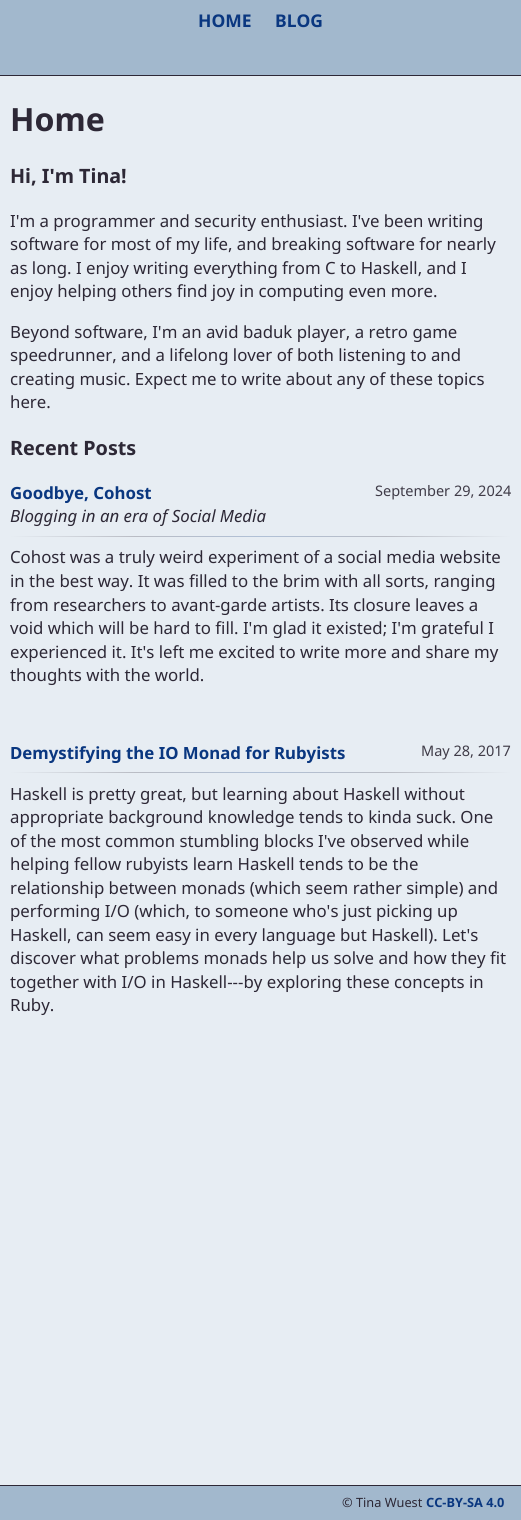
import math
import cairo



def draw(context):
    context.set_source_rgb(231 / 255, 237 / 255, 243 / 255)
    context.paint()
    context.set_source_rgb(162 / 255, 184 / 255, 205 / 255)
    context.rectangle(0, 0, 521, 75)
    context.fill()
    context.set_source_rgb(45 / 255, 40 / 255, 54 / 255)
    context.rectangle(0, 75, 521, 1)
    context.fill()
    gradient = cairo.LinearGradient(10, 537, 511, 537)
    gradient.add_color_stop_rgba(0, 231 / 255, 237 / 255, 243 / 255, 1)
    gradient.add_color_stop_rgba(0.25, 185 / 255, 188 / 255, 196 / 255, 1)
    gradient.add_color_stop_rgba(0.5, 176 / 255, 192 / 255, 214 / 255, 1)
    gradient.add_color_stop_rgba(0.75, 185 / 255, 188 / 255, 196 / 255, 1)
    gradient.add_color_stop_rgba(1, 231 / 255, 237 / 255, 243 / 255, 1)
    context.set_source(gradient)
    context.rectangle(10, 536, 501, 1)
    context.fill()
    gradient = cairo.LinearGradient(10, 773, 511, 773)
    gradient.add_color_stop_rgba(0, 231 / 255, 237 / 255, 243 / 255, 1)
    gradient.add_color_stop_rgba(0.25, 185 / 255, 188 / 255, 196 / 255, 1)
    gradient.add_color_stop_rgba(0.5, 176 / 255, 192 / 255, 214 / 255, 1)
    gradient.add_color_stop_rgba(0.75, 185 / 255, 188 / 255, 196 / 255, 1)
    gradient.add_color_stop_rgba(1, 231 / 255, 237 / 255, 243 / 255, 1)
    context.set_source(gradient)
    context.rectangle(10, 772, 501, 1)
    context.fill()
    context.set_source_rgb(162 / 255, 184 / 255, 205 / 255)
    context.rectangle(0, 1486, 521, 34)
    context.fill()
    context.set_source_rgb(45 / 255, 40 / 255, 54 / 255)
    context.rectangle(0, 1485, 521, 1)
    context.fill()
    context.select_font_face("Noto Sans", cairo.FontSlant.NORMAL, cairo.FontWeight.BOLD)
    context.set_font_size(17.5)
    context.set_source_rgb(10 / 255, 55 / 255, 128 / 255)
    context.move_to(198, 27)
    context.show_text("HOME")
    context.move_to(275, 27)
    context.show_text("BLOG")
    context.set_font_size(32)
    context.set_source_rgb(45 / 255, 40 / 255, 54 / 255)
    context.move_to(10, 131)
    context.show_text("Home")
    context.set_font_size(19.75)
    context.move_to(10, 183)
    context.show_text("Hi, I'm Tina!")
    context.select_font_face("Noto Sans")
    context.set_font_size(16.8)
    context.move_to(10, 227)
    context.show_text("I'm a programmer and security enthusiast. I've been writing")
    context.move_to(10, 250)
    context.show_text("software for most of my life, and breaking software for nearly")
    context.move_to(10, 274)
    context.show_text("as long. I enjoy writing everything from C to Haskell, and I")
    context.move_to(10, 297)
    context.show_text("enjoy helping others find joy in computing even more.")
    context.move_to(10, 338)
    context.show_text("Beyond software, I'm an avid baduk player, a retro game")
    context.move_to(10, 361)
    context.show_text("speedrunner, and a lifelong lover of both listening to and")
    context.move_to(10, 385)
    context.show_text("creating music. Expect me to write about any of these topics")
    context.move_to(10, 408)
    context.show_text("here.")
    context.select_font_face("Noto Sans", cairo.FontSlant.NORMAL, cairo.FontWeight.BOLD)
    context.set_font_size(19.75)
    context.move_to(10, 455)
    context.show_text("Recent Posts")
    context.set_font_size(16.8)
    context.set_source_rgb(10 / 255, 55 / 255, 128 / 255)
    context.move_to(10, 499)
    context.show_text("Goodbye, Cohost")
    context.select_font_face("Noto Sans")
    context.set_font_size(14.5)
    context.set_source_rgb(64 / 255, 60 / 255, 72 / 255)
    context.move_to(375, 496)
    context.show_text("September 29, 2024")
    context.select_font_face("Noto Sans", cairo.FontSlant.ITALIC)
    context.set_font_size(16.8)
    context.set_source_rgb(45 / 255, 40 / 255, 54 / 255)
    context.move_to(10, 522)
    context.show_text("Blogging in an era of Social Media")
    context.select_font_face("Noto Sans")
    context.move_to(10, 563)
    context.show_text("Cohost was a truly weird experiment of a social media website")
    context.move_to(10, 587)
    context.show_text("in the best way. It was filled to the brim with all sorts, ranging")
    context.move_to(10, 611)
    context.show_text("from researchers to avant-garde artists. Its closure leaves a")
    context.move_to(10, 634)
    context.show_text("void which will be hard to fill. I'm glad it existed; I'm grateful I")
    context.move_to(10, 658)
    context.show_text("experienced it. It's left me excited to write more and share my")
    context.move_to(10, 681)
    context.show_text("thoughts with the world.")
    context.select_font_face("Noto Sans", cairo.FontSlant.NORMAL, cairo.FontWeight.BOLD)
    context.set_source_rgb(10 / 255, 55 / 255, 128 / 255)
    context.move_to(10, 759)
    context.show_text("Demystifying the IO Monad for Rubyists")
    context.select_font_face("Noto Sans")
    context.set_font_size(14.5)
    context.set_source_rgb(64 / 255, 60 / 255, 72 / 255)
    context.move_to(421, 756)
    context.show_text("May 28, 2017")
    context.set_font_size(16.8)
    context.set_source_rgb(45 / 255, 40 / 255, 54 / 255)
    context.move_to(10, 800)
    context.show_text("Haskell is pretty great, but learning about Haskell without")
    context.move_to(10, 823)
    context.show_text("appropriate background knowledge tends to kinda suck. One")
    context.move_to(10, 847)
    context.show_text("of the most common stumbling blocks I've observed while")
    context.move_to(10, 870)
    context.show_text("helping fellow rubyists learn Haskell tends to be the")
    context.move_to(10, 894)
    context.show_text("relationship between monads (which seem rather simple) and")
    context.move_to(10, 917)
    context.show_text("performing I/O (which, to someone who's just picking up")
    context.move_to(10, 941)
    context.show_text("Haskell, can seem easy in every language but Haskell). Let's")
    context.move_to(10, 964)
    context.show_text("discover what problems monads help us solve and how they fit")
    context.move_to(10, 988)
    context.show_text("together with I/O in Haskell---by exploring these concepts in")
    context.move_to(10, 1011)
    context.show_text("Ruby.")
    context.set_font_size(12.75)
    context.move_to(342, 1507)
    context.show_text("© Tina Wuest")
    context.select_font_face("Noto Sans", cairo.FontSlant.NORMAL, cairo.FontWeight.BOLD)
    context.set_source_rgb(10 / 255, 55 / 255, 128 / 255)
    context.move_to(426, 1507)
    context.show_text("CC-BY-SA 4.0")


surface = cairo.ImageSurface(cairo.Format.RGB24, 521, 1520)
context = cairo.Context(surface)
options = cairo.FontOptions()
options.set_hint_metrics(cairo.HintMetrics.OFF)
options.set_hint_style(cairo.HintStyle.NONE)
context.set_font_options(options)
context.set_miter_limit(4)
draw(context)
surface.write_to_png("out.png")
